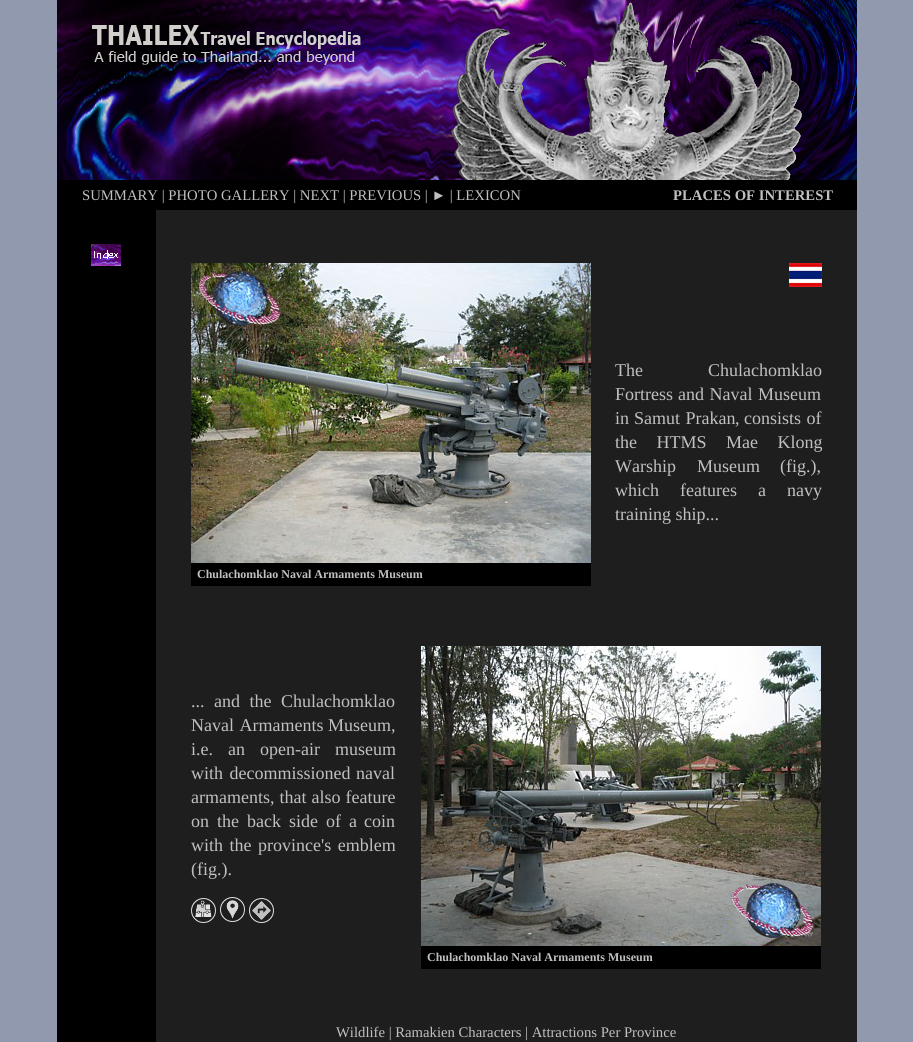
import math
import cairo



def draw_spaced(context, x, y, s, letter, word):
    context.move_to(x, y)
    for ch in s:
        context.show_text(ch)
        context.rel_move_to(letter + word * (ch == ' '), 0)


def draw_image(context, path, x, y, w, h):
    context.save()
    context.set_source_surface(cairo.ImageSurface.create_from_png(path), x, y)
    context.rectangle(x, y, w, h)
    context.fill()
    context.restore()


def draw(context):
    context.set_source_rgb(145 / 255, 153 / 255, 174 / 255)
    context.paint()
    draw_image(context, "images/1.png", 57, 0, 800, 180)
    context.set_source_rgb(0, 0, 0)
    context.rectangle(57, 180, 800, 30)
    context.fill()
    context.rectangle(57, 210, 99, 832)
    context.fill()
    draw_image(context, "images/2.png", 91, 244, 30, 22)
    context.set_source_rgb(30 / 255, 30 / 255, 30 / 255)
    context.rectangle(156, 210, 701, 832)
    context.fill()
    draw_image(context, "images/3.png", 789, 263, 33, 24)
    draw_image(context, "images/4.png", 191, 263, 400, 300)
    context.set_source_rgb(0, 0, 0)
    context.rectangle(191, 563, 400, 23)
    context.fill()
    draw_image(context, "images/5.png", 191, 898, 25, 25)
    draw_image(context, "images/6.png", 220, 897, 25, 25)
    draw_image(context, "images/7.png", 249, 898, 25, 25)
    draw_image(context, "images/8.png", 421, 646, 400, 300)
    context.rectangle(421, 946, 400, 23)
    context.fill()
    context.select_font_face("Liberation Serif")
    context.set_font_size(14.7)
    context.set_source_rgb(192 / 255, 192 / 255, 192 / 255)
    context.move_to(82, 200)
    context.show_text("SUMMARY | PHOTO GALLERY | NEXT | PREVIOUS | ► | LEXICON")
    context.select_font_face("Liberation Serif", cairo.FontSlant.NORMAL, cairo.FontWeight.BOLD)
    context.move_to(673, 200)
    context.show_text("PLACES OF INTEREST")
    context.select_font_face("Liberation Serif")
    context.set_font_size(18)
    context.move_to(615, 376)
    context.show_text("The")
    context.move_to(708, 376)
    context.show_text("Chulachomklao")
    context.move_to(615, 400)
    context.show_text("Fortress")
    draw_spaced(context, 678, 400, "and Naval Museum", 0, 1)
    context.move_to(615, 424)
    context.show_text("in")
    draw_spaced(context, 634, 424, "Samut Prakan", 0, 1)
    draw_spaced(context, 744, 424, "consists of", 0, 1)
    context.move_to(735, 424)
    context.show_text(",")
    draw_spaced(context, 615, 448, "the HTMS Mae Klong", 0, 15)
    draw_spaced(context, 615, 472, "Warship Museum", 0, 16.5)
    context.move_to(780, 472)
    context.show_text("(fig.),")
    draw_spaced(context, 615, 496, "which features a navy", 0, 16.5)
    context.move_to(615, 520)
    context.show_text("training ship...")
    context.select_font_face("Liberation Serif", cairo.FontSlant.NORMAL, cairo.FontWeight.BOLD)
    context.set_font_size(12)
    context.move_to(197, 578)
    context.show_text("Chulachomklao Naval Armaments Museum")
    context.select_font_face("Liberation Serif")
    context.set_font_size(18)
    draw_spaced(context, 191, 707, "... and the", 0, 5)
    context.move_to(281, 707)
    context.show_text("Chulachomklao")
    draw_spaced(context, 191, 731, "Naval Armaments", 0, 1)
    context.move_to(328, 731)
    context.show_text("Museum,")
    draw_spaced(context, 191, 755, "i.e. an open-air museum", 0, 10.5)
    draw_spaced(context, 191, 779, "with decommissioned", 0, 2)
    context.move_to(356, 779)
    context.show_text("naval")
    draw_spaced(context, 191, 803, "armaments, that also feature", 0, 0.5)
    draw_spaced(context, 191, 827, "on the back side of a", 0, 3.5)
    context.move_to(364, 827)
    context.show_text("coin")
    draw_spaced(context, 191, 851, "with the province's emblem", 0, 2)
    context.move_to(191, 875)
    context.show_text("(fig.).")
    context.select_font_face("Liberation Serif", cairo.FontSlant.NORMAL, cairo.FontWeight.BOLD)
    context.set_font_size(12)
    context.move_to(427, 961)
    context.show_text("Chulachomklao Naval Armaments Museum")
    context.select_font_face("Liberation Serif")
    context.set_font_size(14.7)
    context.move_to(336, 1037)
    context.show_text("Wildlife | Ramakien Characters | Attractions Per Province")


surface = cairo.ImageSurface(cairo.Format.RGB24, 913, 1042)
context = cairo.Context(surface)
options = cairo.FontOptions()
options.set_hint_metrics(cairo.HintMetrics.OFF)
options.set_hint_style(cairo.HintStyle.NONE)
context.set_font_options(options)
context.set_miter_limit(4)
draw(context)
surface.write_to_png("out.png")
